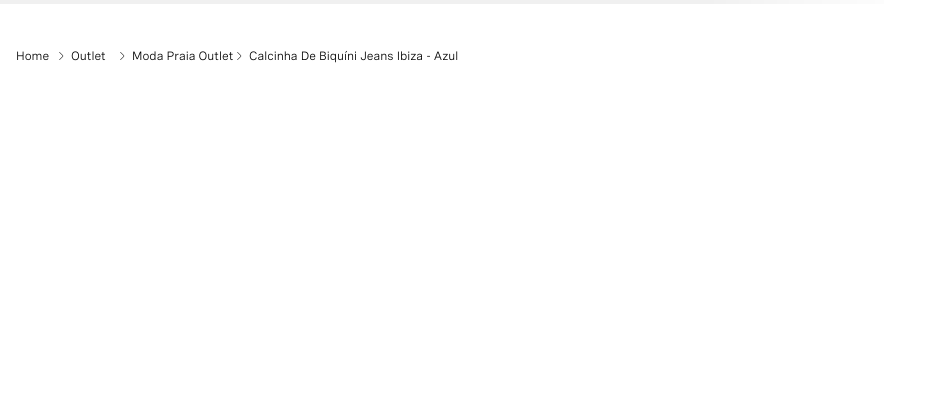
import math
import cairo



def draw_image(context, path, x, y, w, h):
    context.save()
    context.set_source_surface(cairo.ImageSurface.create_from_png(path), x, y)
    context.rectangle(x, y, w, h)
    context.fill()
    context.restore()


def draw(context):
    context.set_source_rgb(1, 1, 1)
    context.paint()
    gradient = cairo.LinearGradient(0, 2, 884, 2)
    gradient.add_color_stop_rgba(0.8, 240 / 255, 240 / 255, 240 / 255, 1)
    gradient.add_color_stop_rgba(0.9, 247 / 255, 247 / 255, 247 / 255, 1)
    gradient.add_color_stop_rgba(1, 252 / 255, 252 / 255, 252 / 255, 1)
    context.set_source(gradient)
    context.rectangle(0, 0, 884, 4)
    context.fill()
    draw_image(context, "images/1.png", 59, 52, 5, 8)
    draw_image(context, "images/1.png", 120, 52, 5, 8)
    draw_image(context, "images/1.png", 237, 52, 5, 8)
    context.select_font_face("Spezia")
    context.set_font_size(12)
    context.set_source_rgb(0, 0, 0)
    context.move_to(16, 60)
    context.show_text("Home")
    context.move_to(71, 60)
    context.show_text("Outlet")
    context.move_to(132, 60)
    context.show_text("Moda Praia Outlet")
    context.move_to(249, 60)
    context.show_text("Calcinha De Biquíni Jeans Ibiza - Azul")


surface = cairo.ImageSurface(cairo.Format.RGB24, 931, 395)
context = cairo.Context(surface)
options = cairo.FontOptions()
options.set_hint_metrics(cairo.HintMetrics.OFF)
options.set_hint_style(cairo.HintStyle.NONE)
context.set_font_options(options)
context.set_miter_limit(4)
draw(context)
surface.write_to_png("out.png")
